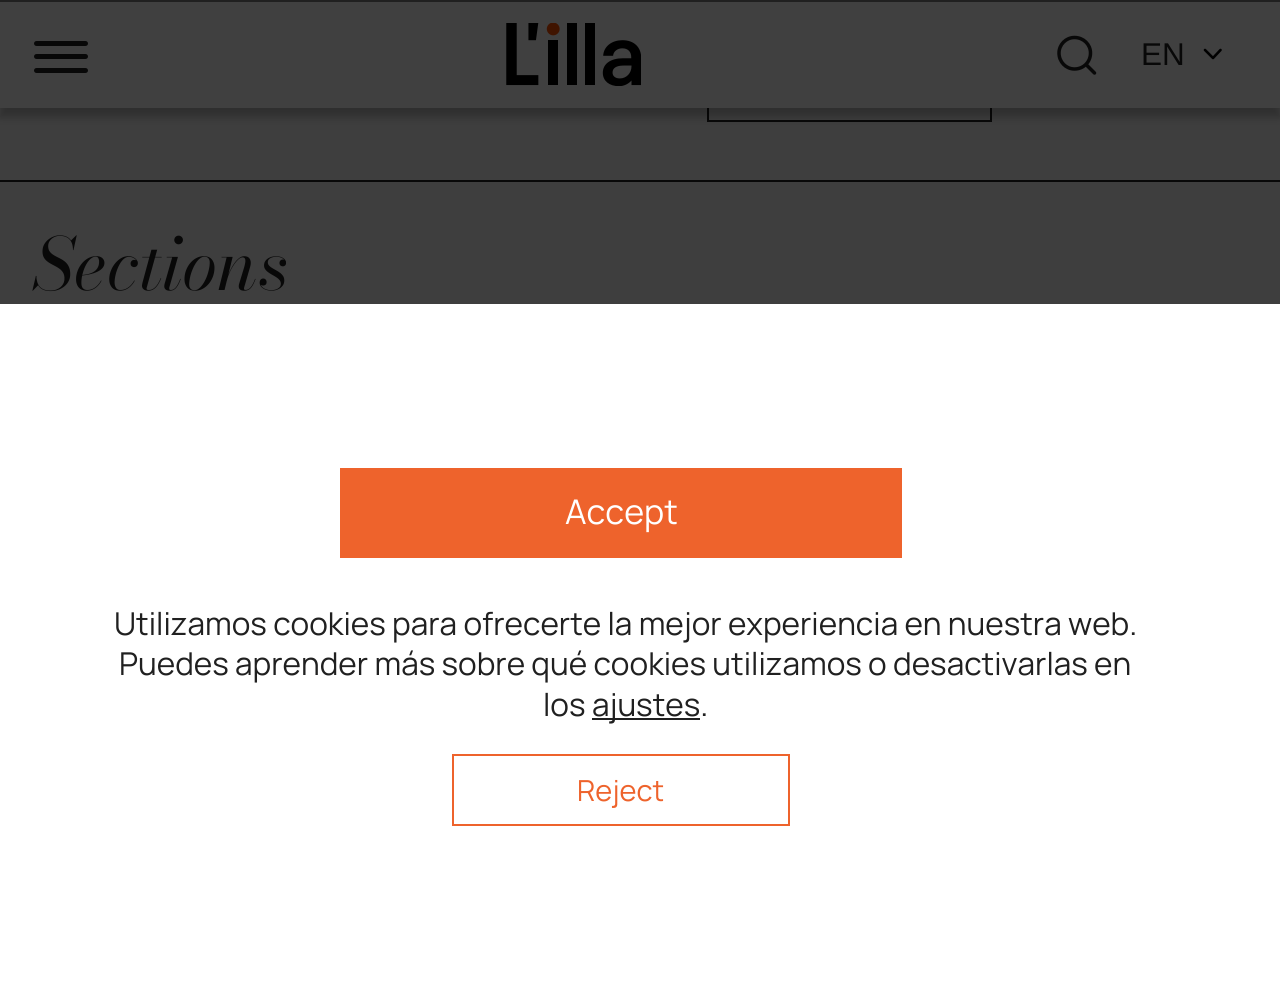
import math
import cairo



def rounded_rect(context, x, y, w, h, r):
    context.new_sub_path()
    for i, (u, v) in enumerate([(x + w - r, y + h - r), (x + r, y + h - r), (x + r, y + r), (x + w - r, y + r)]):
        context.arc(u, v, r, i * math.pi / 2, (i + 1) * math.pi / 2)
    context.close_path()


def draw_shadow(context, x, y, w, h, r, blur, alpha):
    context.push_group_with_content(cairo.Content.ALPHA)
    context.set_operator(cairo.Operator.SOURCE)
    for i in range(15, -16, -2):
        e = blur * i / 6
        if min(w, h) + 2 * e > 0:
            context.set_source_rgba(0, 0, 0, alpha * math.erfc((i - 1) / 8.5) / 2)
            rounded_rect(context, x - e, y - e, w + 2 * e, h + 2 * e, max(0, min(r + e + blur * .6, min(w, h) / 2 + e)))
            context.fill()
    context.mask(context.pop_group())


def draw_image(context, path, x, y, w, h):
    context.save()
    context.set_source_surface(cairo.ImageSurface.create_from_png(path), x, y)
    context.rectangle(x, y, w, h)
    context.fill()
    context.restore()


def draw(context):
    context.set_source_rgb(62 / 255, 62 / 255, 62 / 255)
    context.paint()
    context.rectangle(708, 30, 283, 91)
    context.set_source_rgb(8 / 255, 8 / 255, 8 / 255)
    context.stroke()
    context.set_source_rgb(0, 0, 0)
    draw_shadow(context, 0, 9, 1280, 108, 0, 4.5, 0.25)
    context.set_source_rgb(64 / 255, 64 / 255, 64 / 255)
    context.rectangle(0, 2, 1280, 106)
    context.fill()
    context.set_source_rgb(8 / 255, 8 / 255, 8 / 255)
    rounded_rect(context, 34, 41, 54, 5, 2.5)
    context.fill()
    rounded_rect(context, 34, 54, 54, 5, 2.5)
    context.fill()
    rounded_rect(context, 34, 68, 54, 5, 2.5)
    context.fill()
    draw_image(context, "images/1.png", 506, 23, 135, 63)
    context.new_path()
    context.move_to(1074.5, 69)
    context.curve_to(1083.5, 69, 1090.5, 62, 1090.5, 53)
    context.curve_to(1090.5, 44.5, 1083.5, 37.5, 1074.5, 37.5)
    context.curve_to(1066, 37.5, 1059, 44.5, 1059, 53)
    context.curve_to(1059, 62, 1066, 69, 1074.5, 69)
    context.close_path()
    context.move_to(1094.5, 73)
    context.line_to(1086, 64.5)
    context.set_line_width(3.5)
    context.set_line_cap(cairo.LineCap.ROUND)
    context.set_line_join(cairo.LineJoin.ROUND)
    context.stroke()
    context.new_path()
    context.move_to(1205, 50)
    context.line_to(1213, 58)
    context.line_to(1220.5, 50)
    context.set_source_rgb(0, 0, 0)
    context.set_line_width(2.6)
    context.stroke()
    context.set_source_rgb(8 / 255, 8 / 255, 8 / 255)
    context.rectangle(0, 180, 1280, 2)
    context.fill()
    context.set_source_rgb(32 / 255, 32 / 255, 32 / 255)
    context.rectangle(0, 0, 1280, 2)
    context.fill()
    context.set_source_rgb(1, 1, 1)
    context.rectangle(0, 304, 1280, 684)
    context.fill()
    context.set_source_rgb(238 / 255, 99 / 255, 44 / 255)
    context.rectangle(340, 468, 562, 90)
    context.fill()
    context.set_source_rgb(32 / 255, 32 / 255, 32 / 255)
    context.rectangle(592, 718, 108, 2)
    context.fill()
    context.rectangle(453, 755, 336, 70)
    context.set_source_rgb(238 / 255, 99 / 255, 44 / 255)
    context.set_line_width(2)
    context.set_line_cap(cairo.LineCap.BUTT)
    context.set_line_join(cairo.LineJoin.MITER)
    context.stroke()
    context.select_font_face("Liberation Sans")
    context.set_font_size(31.5)
    context.set_source_rgb(8 / 255, 8 / 255, 8 / 255)
    context.move_to(1141, 65)
    context.show_text("EN")
    context.select_font_face("Bodoni Moda", cairo.FontSlant.ITALIC)
    context.set_font_size(72)
    context.move_to(34, 290)
    context.show_text("Sections")
    context.select_font_face("Manrope")
    context.set_font_size(34)
    context.set_source_rgb(1, 1, 1)
    context.move_to(565, 524)
    context.show_text("Accept")
    context.set_font_size(31.5)
    context.set_source_rgb(32 / 255, 32 / 255, 32 / 255)
    context.move_to(114, 635)
    context.show_text("Utilizamos cookies para ofrecerte la mejor experiencia en nuestra web.")
    context.move_to(119, 675)
    context.show_text("Puedes aprender más sobre qué cookies utilizamos o desactivarlas en")
    context.move_to(543, 716)
    context.show_text("los")
    context.move_to(592, 716)
    context.show_text("ajustes.")
    context.set_font_size(29)
    context.set_source_rgb(238 / 255, 99 / 255, 44 / 255)
    context.move_to(577, 801)
    context.show_text("Reject")


surface = cairo.ImageSurface(cairo.Format.RGB24, 1280, 988)
context = cairo.Context(surface)
options = cairo.FontOptions()
options.set_hint_metrics(cairo.HintMetrics.OFF)
options.set_hint_style(cairo.HintStyle.NONE)
context.set_font_options(options)
context.set_miter_limit(4)
draw(context)
surface.write_to_png("out.png")
